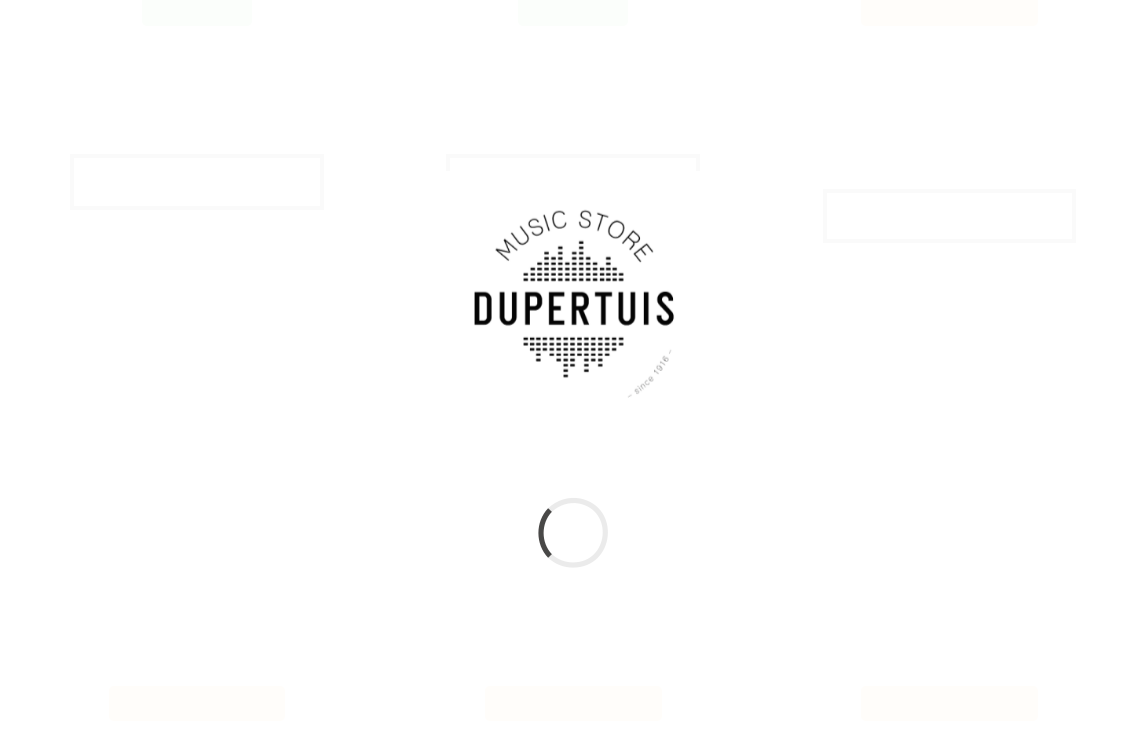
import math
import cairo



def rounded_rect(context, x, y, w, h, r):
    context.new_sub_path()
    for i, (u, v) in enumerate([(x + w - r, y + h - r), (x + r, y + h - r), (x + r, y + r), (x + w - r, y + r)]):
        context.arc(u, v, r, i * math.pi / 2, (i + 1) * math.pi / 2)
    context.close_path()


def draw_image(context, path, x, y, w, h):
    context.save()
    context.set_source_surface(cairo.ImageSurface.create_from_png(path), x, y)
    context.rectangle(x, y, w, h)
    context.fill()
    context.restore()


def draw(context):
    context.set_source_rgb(1, 1, 1)
    context.paint()
    context.set_source_rgb(251 / 255, 254 / 255, 251 / 255)
    rounded_rect(context, 142, -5, 110, 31, 5)
    context.fill()
    context.rectangle(72, 156, 250, 52)
    context.set_source_rgb(250 / 255, 250 / 255, 250 / 255)
    context.set_line_width(4)
    context.stroke()
    context.set_source_rgb(251 / 255, 254 / 255, 251 / 255)
    rounded_rect(context, 518, -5, 110, 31, 5)
    context.fill()
    context.rectangle(448, 156, 250, 52)
    context.set_source_rgb(250 / 255, 250 / 255, 250 / 255)
    context.stroke()
    context.set_source_rgb(1, 253 / 255, 250 / 255)
    rounded_rect(context, 861, -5, 177, 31, 5)
    context.fill()
    context.rectangle(825, 191, 249, 50)
    context.set_source_rgb(250 / 255, 250 / 255, 250 / 255)
    context.stroke()
    context.set_source_rgb(1, 253 / 255, 250 / 255)
    rounded_rect(context, 109, 686, 176, 35, 5)
    context.fill()
    rounded_rect(context, 485, 686, 177, 35, 5)
    context.fill()
    rounded_rect(context, 861, 686, 177, 35, 5)
    context.fill()
    draw_image(context, "images/1.png", 446, 171, 254, 227)
    context.new_path()
    context.move_to(550, 510)
    context.curve_to(558, 502.5, 569, 499, 579.5, 501)
    context.curve_to(617.5, 508.5, 612, 565, 573, 565)
    context.curve_to(564.5, 565, 556.5, 562, 550, 556)
    context.set_source_rgb(235 / 255, 235 / 255, 235 / 255)
    context.set_line_width(5.2)
    context.stroke()
    context.new_path()
    context.move_to(550, 556)
    context.curve_to(538, 543.5, 538, 522.5, 550, 510)
    context.set_source_rgb(73 / 255, 72 / 255, 71 / 255)
    context.stroke()


surface = cairo.ImageSurface(cairo.Format.RGB24, 1145, 738)
context = cairo.Context(surface)
options = cairo.FontOptions()
options.set_hint_metrics(cairo.HintMetrics.OFF)
options.set_hint_style(cairo.HintStyle.NONE)
context.set_font_options(options)
context.set_miter_limit(4)
draw(context)
surface.write_to_png("out.png")
